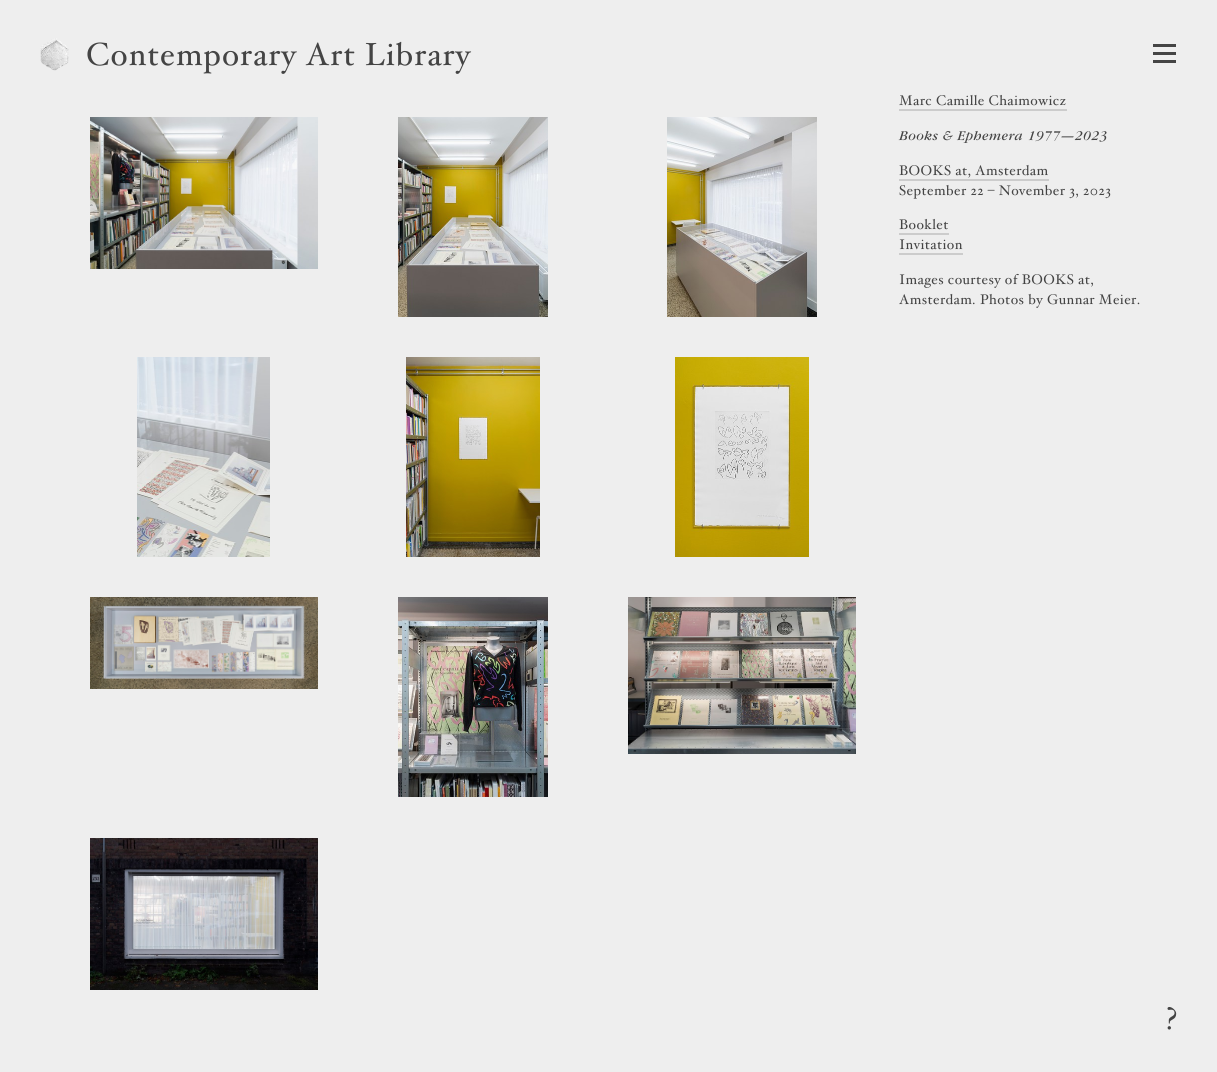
import math
import cairo



def draw_spaced(context, x, y, s, letter, word):
    context.move_to(x, y)
    for ch in s:
        context.show_text(ch)
        context.rel_move_to(letter + word * (ch == ' '), 0)


def draw_image(context, path, x, y, w, h):
    context.save()
    context.set_source_surface(cairo.ImageSurface.create_from_png(path), x, y)
    context.rectangle(x, y, w, h)
    context.fill()
    context.restore()


def draw(context):
    context.set_source_rgb(238 / 255, 238 / 255, 238 / 255)
    context.paint()
    draw_image(context, "images/1.png", 40, 38, 29, 33)
    context.set_source_rgb(68 / 255, 68 / 255, 68 / 255)
    context.rectangle(1153, 44, 23, 3)
    context.fill()
    context.rectangle(1153, 52, 23, 3)
    context.fill()
    context.rectangle(1153, 60, 23, 3)
    context.fill()
    draw_image(context, "images/2.png", 90, 117, 228, 152)
    draw_image(context, "images/3.png", 398, 117, 150, 200)
    draw_image(context, "images/4.png", 667, 117, 150, 200)
    draw_image(context, "images/5.png", 137, 357, 133, 200)
    draw_image(context, "images/6.png", 406, 357, 134, 200)
    draw_image(context, "images/7.png", 675, 357, 134, 200)
    draw_image(context, "images/8.png", 90, 597, 228, 92)
    draw_image(context, "images/9.png", 398, 597, 150, 200)
    draw_image(context, "images/10.png", 628, 597, 228, 157)
    draw_image(context, "images/11.png", 90, 838, 228, 152)
    context.set_source_rgb(204 / 255, 204 / 255, 204 / 255)
    context.rectangle(899, 109, 168, 2)
    context.fill()
    context.rectangle(899, 179, 150, 2)
    context.fill()
    context.rectangle(899, 233, 50, 2)
    context.fill()
    context.rectangle(899, 253, 64, 2)
    context.fill()
    context.select_font_face("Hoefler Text")
    context.set_font_size(32)
    context.set_source_rgb(68 / 255, 68 / 255, 68 / 255)
    draw_spaced(context, 86, 65, "Contemporary Art Library", 1, 0)
    context.set_font_size(14)
    draw_spaced(context, 899, 105, "Marc Camille Chaimowicz", 0.4, 0)
    context.select_font_face("Garamond", cairo.FontSlant.ITALIC)
    draw_spaced(context, 899, 140, "Books & Ephemera 1977—2023", 0.4, 0)
    context.select_font_face("Hoefler Text")
    draw_spaced(context, 899, 175, "BOOKS at, Amsterdam", 0.4, 0)
    draw_spaced(context, 899, 195, "September 22 – November 3, 2023", 0.4, 0)
    draw_spaced(context, 899, 229, "Booklet", 0.4, 0)
    draw_spaced(context, 899, 249, "Invitation", 0.4, 0)
    draw_spaced(context, 899, 284, "Images courtesy of BOOKS at,", 0.4, 0)
    draw_spaced(context, 899, 304, "Amsterdam. Photos by Gunnar Meier.", 0.4, 0)
    context.set_font_size(32)
    draw_spaced(context, 1166, 1029, "?", 0.4, 0)


surface = cairo.ImageSurface(cairo.Format.RGB24, 1217, 1072)
context = cairo.Context(surface)
options = cairo.FontOptions()
options.set_hint_metrics(cairo.HintMetrics.OFF)
options.set_hint_style(cairo.HintStyle.NONE)
context.set_font_options(options)
context.set_miter_limit(4)
draw(context)
surface.write_to_png("out.png")
